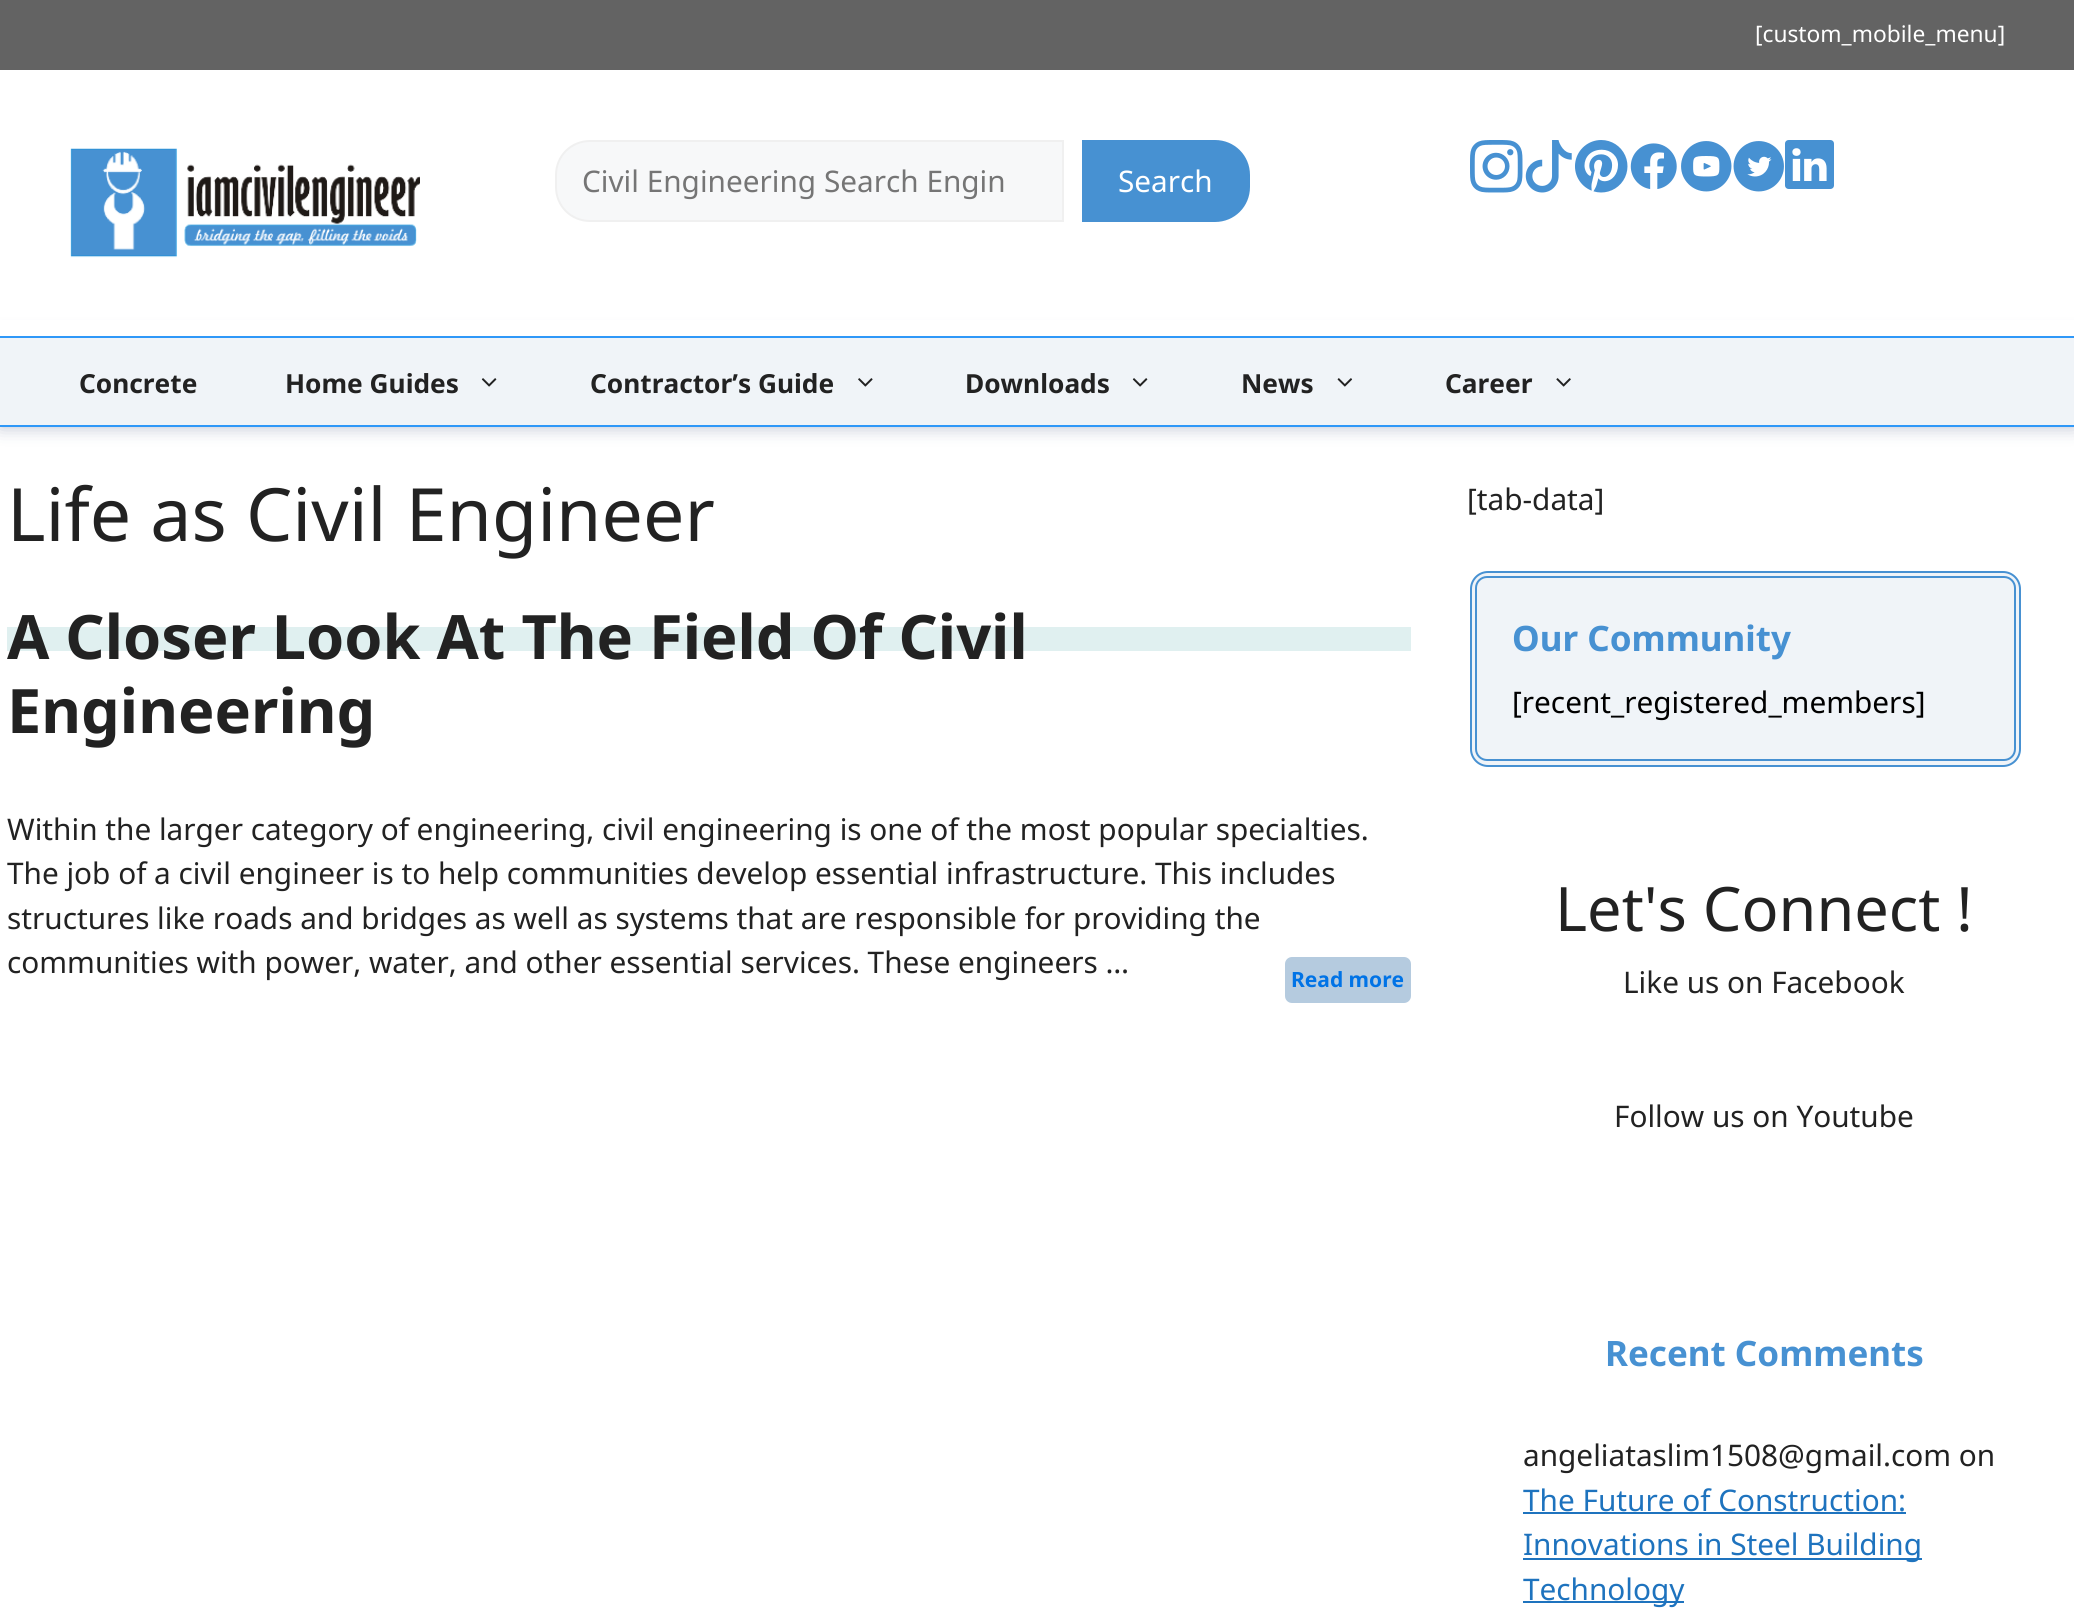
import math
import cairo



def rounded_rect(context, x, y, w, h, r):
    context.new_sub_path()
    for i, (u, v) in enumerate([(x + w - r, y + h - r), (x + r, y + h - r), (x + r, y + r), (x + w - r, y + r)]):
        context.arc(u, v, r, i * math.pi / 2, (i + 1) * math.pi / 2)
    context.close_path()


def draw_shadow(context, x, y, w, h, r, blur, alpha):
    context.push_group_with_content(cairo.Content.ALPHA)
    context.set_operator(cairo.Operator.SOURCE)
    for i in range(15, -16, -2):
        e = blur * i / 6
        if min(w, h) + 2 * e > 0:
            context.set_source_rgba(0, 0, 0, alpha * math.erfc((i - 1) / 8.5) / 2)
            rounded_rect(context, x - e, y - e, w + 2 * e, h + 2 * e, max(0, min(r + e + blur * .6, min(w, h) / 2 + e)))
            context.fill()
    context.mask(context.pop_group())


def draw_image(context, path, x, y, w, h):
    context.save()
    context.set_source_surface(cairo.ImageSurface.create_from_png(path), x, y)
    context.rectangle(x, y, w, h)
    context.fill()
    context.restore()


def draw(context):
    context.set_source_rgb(1, 1, 1)
    context.paint()
    context.set_source_rgb(99 / 255, 99 / 255, 99 / 255)
    context.rectangle(0, 0, 2074, 70)
    context.fill()
    context.set_source_rgb(23 / 255, 43 / 255, 99 / 255)
    draw_shadow(context, 0, 336, 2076, 91, 0, 9, 0.3)
    context.set_source_rgb(1, 1, 1)
    context.rectangle(0, 320, 2074, 16)
    context.fill()
    draw_image(context, "images/1.png", 70, 148, 350, 110)
    context.set_source_rgb(247 / 255, 248 / 255, 249 / 255)
    context.new_path()
    context.move_to(590, 141)
    context.line_to(1063, 141)
    context.line_to(1063, 221)
    context.line_to(590, 221)
    context.curve_to(571, 221, 556, 206, 556, 187)
    context.line_to(556, 175)
    context.curve_to(556, 156, 571, 141, 590, 141)
    context.close_path()
    context.fill_preserve()
    context.set_source_rgb(240 / 255, 240 / 255, 240 / 255)
    context.stroke()
    context.set_source_rgb(71 / 255, 145 / 255, 210 / 255)
    context.new_path()
    context.move_to(1082, 140)
    context.line_to(1215, 140)
    context.curve_to(1234.5, 140, 1250, 155.5, 1250, 175)
    context.line_to(1250, 187)
    context.curve_to(1250, 206.5, 1234.5, 222, 1215, 222)
    context.line_to(1082, 222)
    context.close_path()
    context.fill()
    draw_image(context, "images/2.png", 1470, 140, 53, 53)
    draw_image(context, "images/3.png", 1525, 140, 47, 53)
    draw_image(context, "images/4.png", 1575, 140, 53, 53)
    draw_image(context, "images/5.png", 1630, 143, 47, 46)
    draw_image(context, "images/6.png", 1681, 141, 51, 51)
    draw_image(context, "images/7.png", 1733, 141, 51, 51)
    draw_image(context, "images/8.png", 1785, 140, 49, 49)
    context.set_source_rgb(240 / 255, 244 / 255, 248 / 255)
    context.rectangle(0, 338, 2074, 87)
    context.fill()
    context.set_source_rgb(47 / 255, 152 / 255, 248 / 255)
    context.rectangle(0, 336, 2074, 2)
    context.fill()
    context.rectangle(0, 425, 2074, 2)
    context.fill()
    draw_image(context, "images/9.png", 481, 378, 16, 9)
    draw_image(context, "images/10.png", 858, 378, 15, 9)
    draw_image(context, "images/9.png", 1132, 378, 16, 9)
    draw_image(context, "images/11.png", 1337, 378, 16, 9)
    draw_image(context, "images/12.png", 1556, 378, 15, 9)
    context.set_source_rgb(224 / 255, 240 / 255, 240 / 255)
    context.rectangle(7, 627, 1404, 24)
    context.fill()
    context.set_source_rgb(181 / 255, 203 / 255, 223 / 255)
    rounded_rect(context, 1285, 957, 126, 46, 7)
    context.fill()
    context.set_source_rgb(240 / 255, 244 / 255, 248 / 255)
    rounded_rect(context, 1471, 572, 549, 194, 17)
    context.fill_preserve()
    context.set_source_rgb(71 / 255, 145 / 255, 210 / 255)
    context.stroke()
    rounded_rect(context, 1476, 577, 539, 183, 11)
    context.stroke()
    context.set_source_rgb(30 / 255, 115 / 255, 190 / 255)
    context.rectangle(1523, 1512, 383, 2)
    context.fill()
    context.rectangle(1523, 1558, 399, 2)
    context.fill()
    context.rectangle(1523, 1601, 161, 2)
    context.fill()
    context.select_font_face("Noto Sans")
    context.set_font_size(22.75)
    context.set_source_rgb(1, 1, 1)
    context.move_to(1755, 42)
    context.show_text("[custom_mobile_menu]")
    context.set_font_size(29.75)
    context.set_source_rgb(117 / 255, 117 / 255, 117 / 255)
    context.move_to(582, 192)
    context.show_text("Civil Engineering Search Engin")
    context.set_source_rgb(1, 1, 1)
    context.move_to(1118, 192)
    context.show_text("Search")
    context.select_font_face("Noto Sans", cairo.FontSlant.NORMAL, cairo.FontWeight.BOLD)
    context.set_font_size(26.25)
    context.set_source_rgb(34 / 255, 34 / 255, 34 / 255)
    context.move_to(79, 393)
    context.show_text("Concrete")
    context.move_to(285, 393)
    context.show_text("Home Guides")
    context.move_to(590, 393)
    context.show_text("Contractor’s Guide")
    context.move_to(965, 393)
    context.show_text("Downloads")
    context.move_to(1241, 393)
    context.show_text("News")
    context.move_to(1445, 393)
    context.show_text("Career")
    context.select_font_face("Noto Sans")
    context.set_font_size(73.5)
    context.move_to(7, 541)
    context.show_text("Life as Civil Engineer")
    context.select_font_face("Noto Sans", cairo.FontSlant.NORMAL, cairo.FontWeight.BOLD)
    context.set_font_size(61.25)
    context.move_to(7, 659)
    context.show_text("A Closer Look At The Field Of Civil")
    context.move_to(7, 733)
    context.show_text("Engineering")
    context.select_font_face("Noto Sans")
    context.set_font_size(29.75)
    context.move_to(7, 840)
    context.show_text("Within the larger category of engineering, civil engineering is one of the most popular specialties.")
    context.move_to(7, 884)
    context.show_text("The job of a civil engineer is to help communities develop essential infrastructure. This includes")
    context.move_to(7, 929)
    context.show_text("structures like roads and bridges as well as systems that are responsible for providing the")
    context.move_to(7, 973)
    context.show_text("communities with power, water, and other essential services. These engineers …")
    context.select_font_face("Noto Sans", cairo.FontSlant.NORMAL, cairo.FontWeight.BOLD)
    context.set_font_size(21)
    context.set_source_rgb(0, 115 / 255, 230 / 255)
    context.move_to(1291, 987)
    context.show_text("Read more")
    context.select_font_face("Noto Sans")
    context.set_font_size(29.75)
    context.set_source_rgb(34 / 255, 34 / 255, 34 / 255)
    context.move_to(1467, 510)
    context.show_text("[tab-data]")
    context.select_font_face("Noto Sans", cairo.FontSlant.NORMAL, cairo.FontWeight.BOLD)
    context.set_font_size(35)
    context.set_source_rgb(71 / 255, 145 / 255, 210 / 255)
    context.move_to(1512, 651)
    context.show_text("Our Community")
    context.select_font_face("Noto Sans")
    context.set_font_size(29.75)
    context.set_source_rgb(0, 0, 0)
    context.move_to(1512, 713)
    context.show_text("[recent_registered_members]")
    context.set_font_size(61.25)
    context.set_source_rgb(34 / 255, 34 / 255, 34 / 255)
    context.move_to(1555, 931)
    context.show_text("Let's Connect !")
    context.set_font_size(29.75)
    context.move_to(1623, 993)
    context.show_text("Like us on Facebook")
    context.move_to(1614, 1127)
    context.show_text("Follow us on Youtube")
    context.select_font_face("Noto Sans", cairo.FontSlant.NORMAL, cairo.FontWeight.BOLD)
    context.set_font_size(35)
    context.set_source_rgb(71 / 255, 145 / 255, 210 / 255)
    context.move_to(1605, 1366)
    context.show_text("Recent Comments")
    context.select_font_face("Noto Sans")
    context.set_font_size(29.75)
    context.set_source_rgb(34 / 255, 34 / 255, 34 / 255)
    context.move_to(1523, 1466)
    context.show_text("angeliataslim1508@gmail.com on")
    context.set_source_rgb(30 / 255, 115 / 255, 190 / 255)
    context.move_to(1523, 1511)
    context.show_text("The Future of Construction:")
    context.move_to(1523, 1555)
    context.show_text("Innovations in Steel Building")
    context.move_to(1523, 1600)
    context.show_text("Technology")


surface = cairo.ImageSurface(cairo.Format.RGB24, 2074, 1611)
context = cairo.Context(surface)
options = cairo.FontOptions()
options.set_hint_metrics(cairo.HintMetrics.OFF)
options.set_hint_style(cairo.HintStyle.NONE)
context.set_font_options(options)
context.set_miter_limit(4)
draw(context)
surface.write_to_png("out.png")
